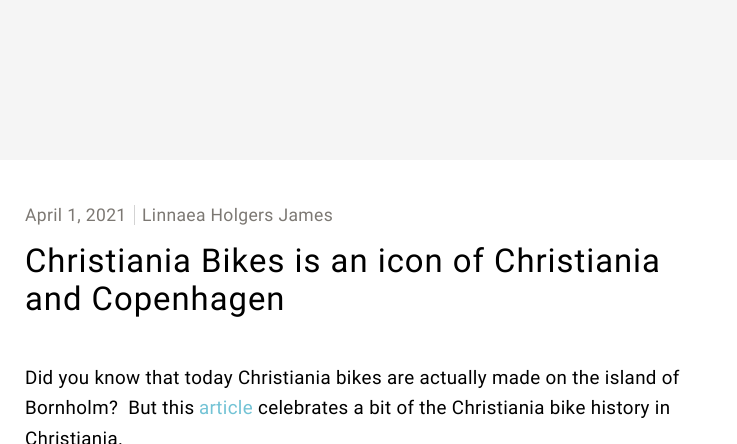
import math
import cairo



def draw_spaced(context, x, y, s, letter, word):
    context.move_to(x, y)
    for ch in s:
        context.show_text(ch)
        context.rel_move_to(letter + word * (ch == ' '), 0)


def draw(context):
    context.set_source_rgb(1, 1, 1)
    context.paint()
    context.set_source_rgb(245 / 255, 245 / 255, 245 / 255)
    context.rectangle(0, 0, 737, 160)
    context.fill()
    context.set_source_rgb(211 / 255, 211 / 255, 211 / 255)
    context.rectangle(134, 205, 1, 20)
    context.fill()
    context.select_font_face("Roboto")
    context.set_font_size(17.5)
    context.set_source_rgb(124 / 255, 120 / 255, 115 / 255)
    draw_spaced(context, 25, 221, "April 1, 2021", 0.35, 0)
    draw_spaced(context, 142, 221, "Linnaea Holgers James", 0.35, 0)
    context.set_font_size(32.8)
    context.set_source_rgb(0, 0, 0)
    draw_spaced(context, 25, 272, "Christiania Bikes is an icon of Christiania", 1, 0)
    draw_spaced(context, 25, 310, "and Copenhagen", 1, 0)
    context.set_font_size(18.75)
    draw_spaced(context, 25, 384, "Did you know that today Christiania bikes are actually made on the island of", 0.35, 0)
    draw_spaced(context, 25, 414, "Bornholm?  But this", 0.35, 0)
    context.set_source_rgb(115 / 255, 195 / 255, 213 / 255)
    draw_spaced(context, 199, 414, "article", 0.35, 0)
    context.set_source_rgb(0, 0, 0)
    draw_spaced(context, 258, 414, "celebrates a bit of the Christiania bike history in", 0.35, 0)
    draw_spaced(context, 25, 445, "Christiania.", 0.35, 0)


surface = cairo.ImageSurface(cairo.Format.RGB24, 737, 444)
context = cairo.Context(surface)
options = cairo.FontOptions()
options.set_hint_metrics(cairo.HintMetrics.OFF)
options.set_hint_style(cairo.HintStyle.NONE)
context.set_font_options(options)
context.set_miter_limit(4)
draw(context)
surface.write_to_png("out.png")
